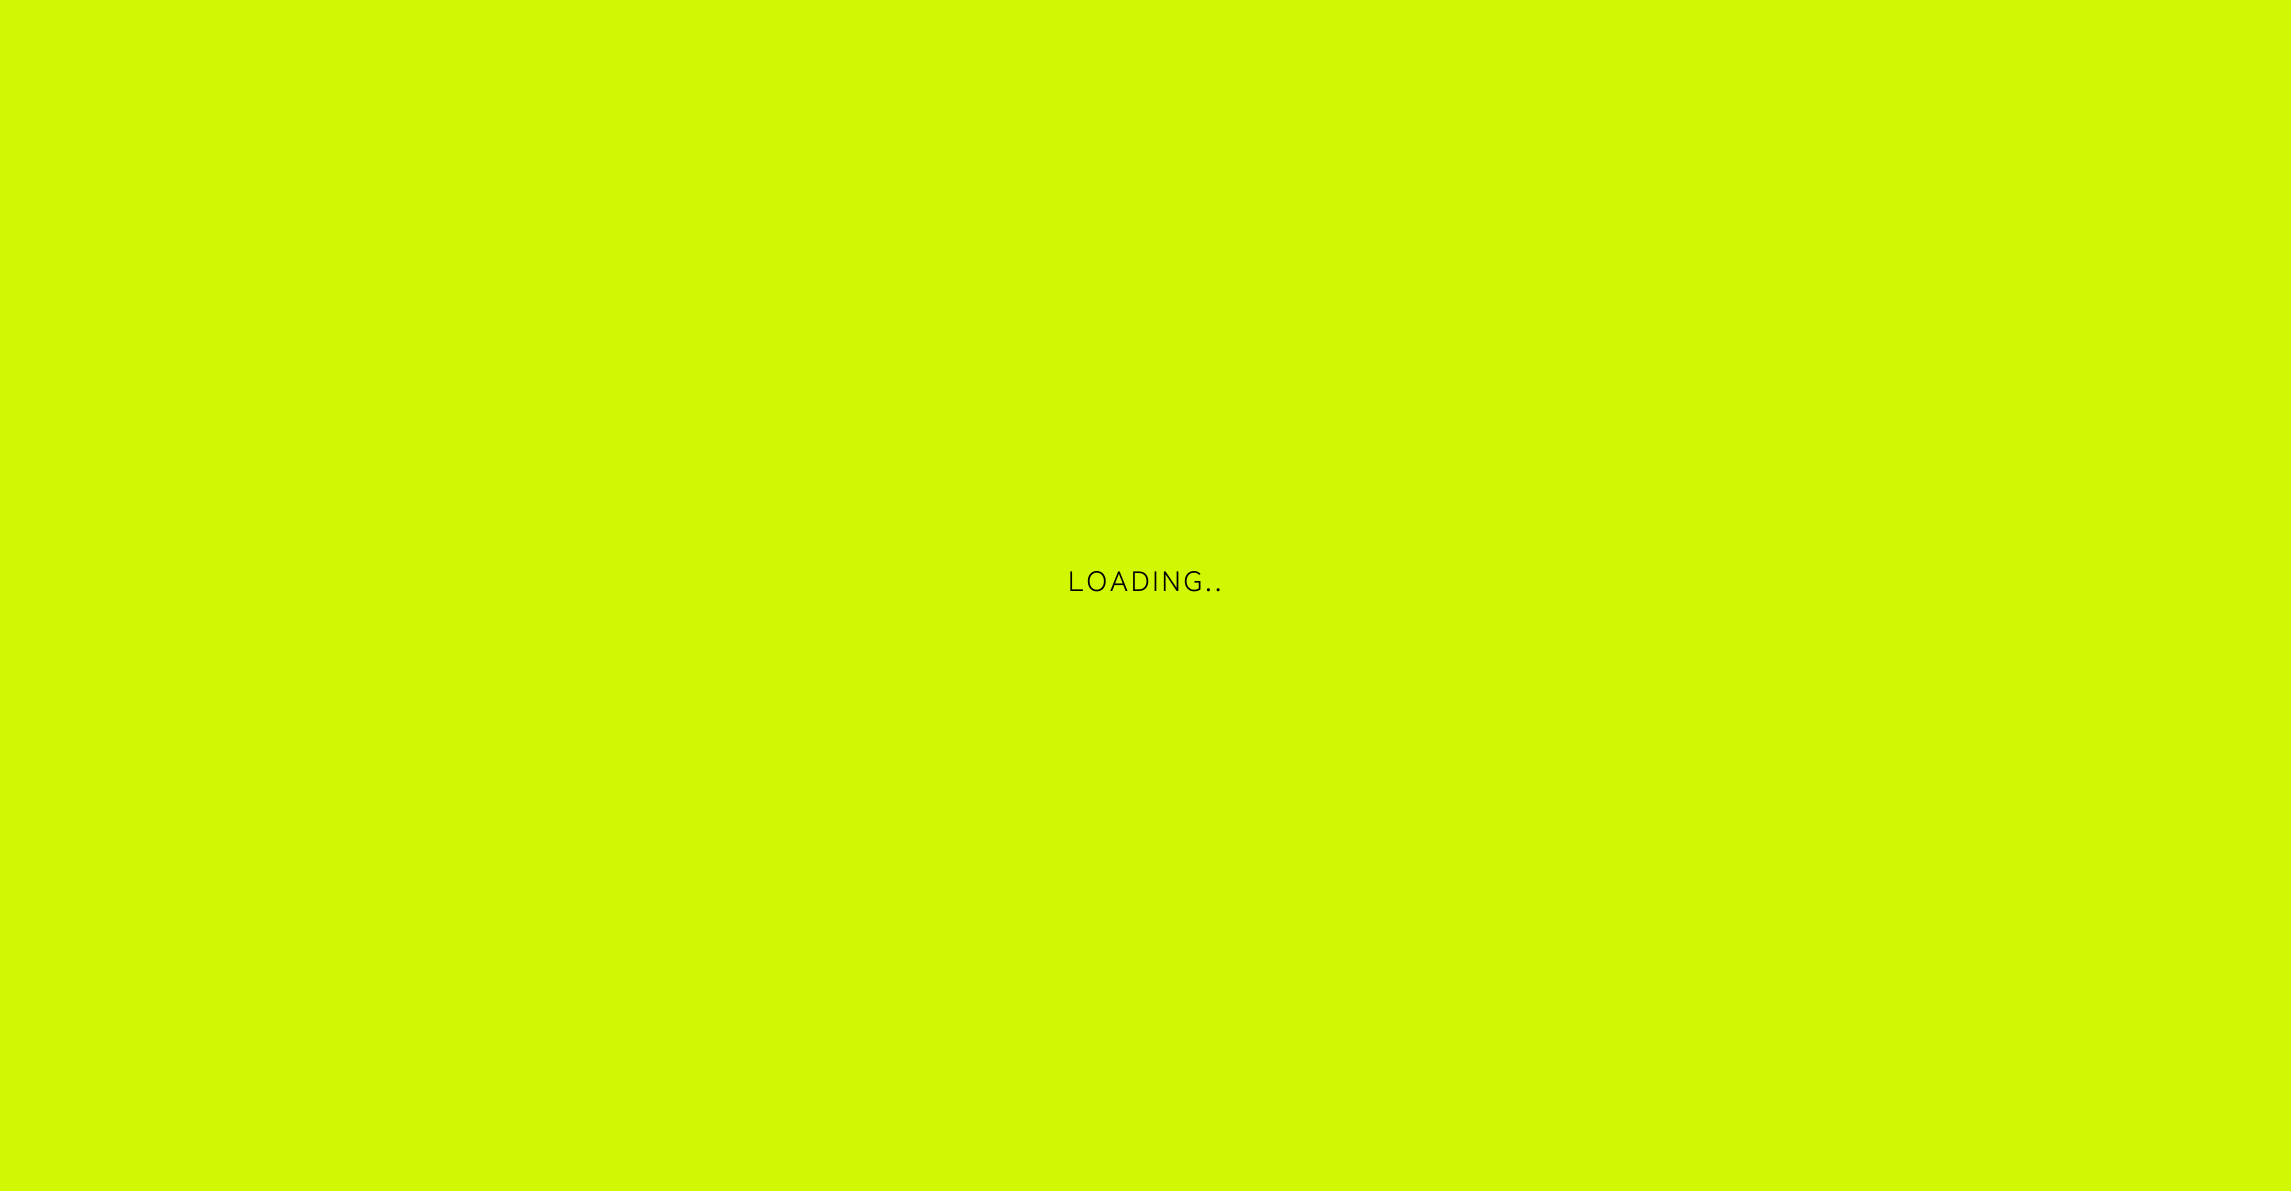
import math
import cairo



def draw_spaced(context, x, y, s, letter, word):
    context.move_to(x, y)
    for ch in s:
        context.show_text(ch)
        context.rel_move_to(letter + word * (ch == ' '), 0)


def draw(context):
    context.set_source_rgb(210 / 255, 247 / 255, 3 / 255)
    context.paint()
    context.select_font_face("Zen Kaku Gothic New")
    context.set_font_size(28)
    context.set_source_rgb(0, 0, 0)
    draw_spaced(context, 1068, 591, "LOADING..", 2.75, 0)


surface = cairo.ImageSurface(cairo.Format.RGB24, 2291, 1191)
context = cairo.Context(surface)
options = cairo.FontOptions()
options.set_hint_metrics(cairo.HintMetrics.OFF)
options.set_hint_style(cairo.HintStyle.NONE)
context.set_font_options(options)
context.set_miter_limit(4)
draw(context)
surface.write_to_png("out.png")
